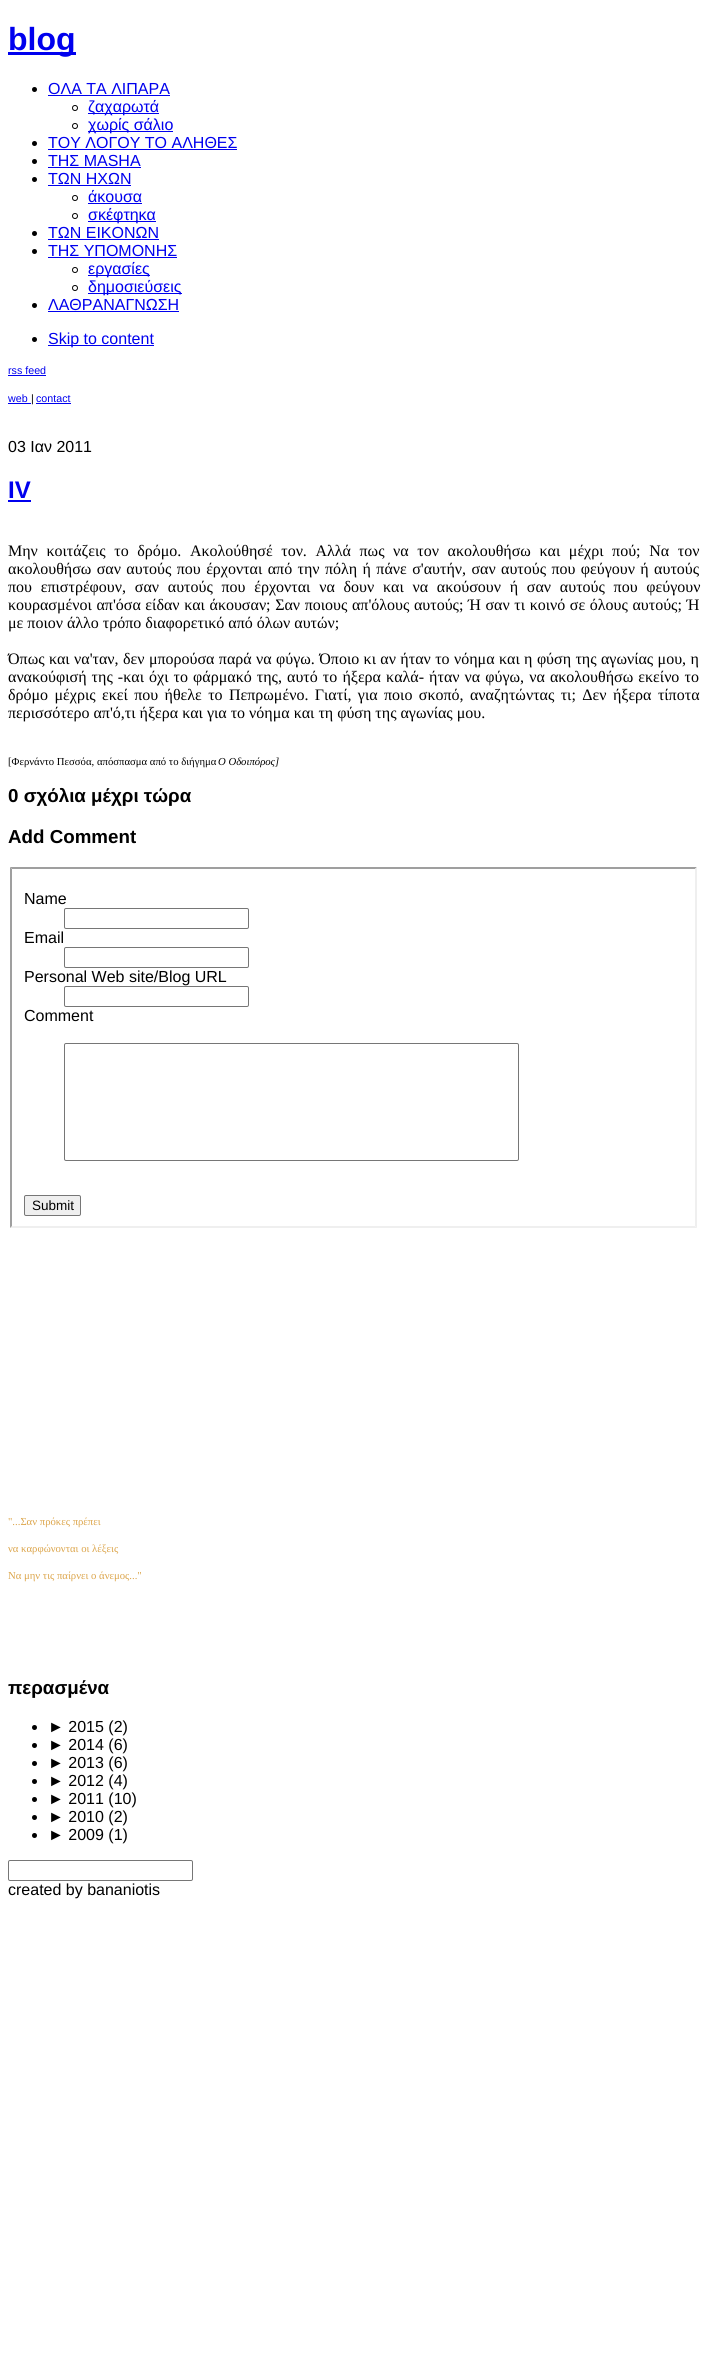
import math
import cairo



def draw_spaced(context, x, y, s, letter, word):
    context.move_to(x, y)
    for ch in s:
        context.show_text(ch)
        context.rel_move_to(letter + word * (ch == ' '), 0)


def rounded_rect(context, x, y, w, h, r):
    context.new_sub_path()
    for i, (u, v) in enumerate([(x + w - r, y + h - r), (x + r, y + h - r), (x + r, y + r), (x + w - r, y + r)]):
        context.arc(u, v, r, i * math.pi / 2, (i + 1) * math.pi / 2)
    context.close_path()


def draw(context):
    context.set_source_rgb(1, 1, 1)
    context.paint()
    context.set_source_rgb(0, 0, 238 / 255)
    context.rectangle(8, 52, 68, 3)
    context.fill()
    context.set_source_rgb(0, 0, 0)
    context.arc(34.5, 89.5, 2.5, 0, 2 * math.pi)
    context.fill()
    context.set_source_rgb(0, 0, 238 / 255)
    context.rectangle(48, 95, 122, 1)
    context.fill()
    context.arc(75, 108, 2.5, 0, 2 * math.pi)
    context.set_source_rgb(0, 0, 0)
    context.set_line_width(1)
    context.stroke()
    context.set_source_rgb(0, 0, 238 / 255)
    context.rectangle(88, 113, 71, 1)
    context.fill()
    context.arc(75, 126, 2.5, 0, 2 * math.pi)
    context.set_source_rgb(0, 0, 0)
    context.stroke()
    context.set_source_rgb(0, 0, 238 / 255)
    context.rectangle(88, 131, 85, 1)
    context.fill()
    context.set_source_rgb(0, 0, 0)
    context.arc(34.5, 143.5, 2.5, 0, 2 * math.pi)
    context.fill()
    context.set_source_rgb(0, 0, 238 / 255)
    context.rectangle(48, 149, 189, 1)
    context.fill()
    context.set_source_rgb(0, 0, 0)
    context.arc(34.5, 161.5, 2.5, 0, 2 * math.pi)
    context.fill()
    context.set_source_rgb(0, 0, 238 / 255)
    context.rectangle(48, 167, 93, 1)
    context.fill()
    context.set_source_rgb(0, 0, 0)
    context.arc(34.5, 179.5, 2.5, 0, 2 * math.pi)
    context.fill()
    context.set_source_rgb(0, 0, 238 / 255)
    context.rectangle(48, 185, 83, 1)
    context.fill()
    context.arc(75, 198, 2.5, 0, 2 * math.pi)
    context.set_source_rgb(0, 0, 0)
    context.stroke()
    context.set_source_rgb(0, 0, 238 / 255)
    context.rectangle(88, 203, 54, 1)
    context.fill()
    context.arc(75, 216, 2.5, 0, 2 * math.pi)
    context.set_source_rgb(0, 0, 0)
    context.stroke()
    context.set_source_rgb(0, 0, 238 / 255)
    context.rectangle(88, 221, 68, 1)
    context.fill()
    context.set_source_rgb(0, 0, 0)
    context.arc(34.5, 233.5, 2.5, 0, 2 * math.pi)
    context.fill()
    context.set_source_rgb(0, 0, 238 / 255)
    context.rectangle(48, 239, 111, 1)
    context.fill()
    context.set_source_rgb(0, 0, 0)
    context.arc(34.5, 251.5, 2.5, 0, 2 * math.pi)
    context.fill()
    context.set_source_rgb(0, 0, 238 / 255)
    context.rectangle(48, 257, 129, 1)
    context.fill()
    context.arc(75, 270, 2.5, 0, 2 * math.pi)
    context.set_source_rgb(0, 0, 0)
    context.stroke()
    context.set_source_rgb(0, 0, 238 / 255)
    context.rectangle(88, 275, 62, 1)
    context.fill()
    context.arc(75, 288, 2.5, 0, 2 * math.pi)
    context.set_source_rgb(0, 0, 0)
    context.stroke()
    context.set_source_rgb(0, 0, 238 / 255)
    context.rectangle(88, 293, 94, 1)
    context.fill()
    context.set_source_rgb(0, 0, 0)
    context.arc(34.5, 305.5, 2.5, 0, 2 * math.pi)
    context.fill()
    context.set_source_rgb(0, 0, 238 / 255)
    context.rectangle(48, 311, 131, 1)
    context.fill()
    context.set_source_rgb(0, 0, 0)
    context.arc(34.5, 339.5, 2.5, 0, 2 * math.pi)
    context.fill()
    context.set_source_rgb(0, 0, 238 / 255)
    context.rectangle(48, 345, 106, 1)
    context.fill()
    context.rectangle(8, 375, 38, 1)
    context.fill()
    context.rectangle(8, 403, 23, 1)
    context.fill()
    context.rectangle(36, 403, 35, 1)
    context.fill()
    context.rectangle(8, 500, 23, 2)
    context.fill()
    context.set_source_rgb(159 / 255, 159 / 255, 159 / 255)
    context.new_path()
    context.move_to(10, 867)
    context.line_to(697, 867)
    context.line_to(695, 869)
    context.line_to(12, 869)
    context.close_path()
    context.fill()
    context.set_source_rgb(239 / 255, 239 / 255, 239 / 255)
    context.new_path()
    context.move_to(697, 867)
    context.line_to(697, 1228)
    context.line_to(695, 1226)
    context.line_to(695, 869)
    context.close_path()
    context.fill()
    context.new_path()
    context.move_to(697, 1228)
    context.line_to(10, 1228)
    context.line_to(12, 1226)
    context.line_to(695, 1226)
    context.close_path()
    context.fill()
    context.set_source_rgb(159 / 255, 159 / 255, 159 / 255)
    context.new_path()
    context.move_to(10, 1228)
    context.line_to(10, 867)
    context.line_to(12, 869)
    context.line_to(12, 1226)
    context.close_path()
    context.fill()
    rounded_rect(context, 64.5, 908.5, 184, 20, 1.5)
    context.set_source_rgb(118 / 255, 118 / 255, 118 / 255)
    context.stroke()
    rounded_rect(context, 64.5, 947.5, 184, 20, 1.5)
    context.stroke()
    rounded_rect(context, 64.5, 986.5, 184, 20, 1.5)
    context.stroke()
    rounded_rect(context, 64.5, 1043.5, 454, 117, 1.5)
    context.stroke()
    context.set_source_rgb(239 / 255, 239 / 255, 239 / 255)
    rounded_rect(context, 24.5, 1195.5, 56, 20, 1.5)
    context.fill_preserve()
    context.set_source_rgb(118 / 255, 118 / 255, 118 / 255)
    context.stroke()
    context.set_source_rgb(0, 0, 0)
    context.arc(34.5, 1727.5, 2.5, 0, 2 * math.pi)
    context.fill()
    context.arc(34.5, 1745.5, 2.5, 0, 2 * math.pi)
    context.fill()
    context.arc(34.5, 1763.5, 2.5, 0, 2 * math.pi)
    context.fill()
    context.arc(34.5, 1781.5, 2.5, 0, 2 * math.pi)
    context.fill()
    context.arc(34.5, 1799.5, 2.5, 0, 2 * math.pi)
    context.fill()
    context.arc(34.5, 1817.5, 2.5, 0, 2 * math.pi)
    context.fill()
    context.arc(34.5, 1835.5, 2.5, 0, 2 * math.pi)
    context.fill()
    rounded_rect(context, 8.5, 1860.5, 184, 20, 1.5)
    context.set_source_rgb(118 / 255, 118 / 255, 118 / 255)
    context.stroke()
    context.select_font_face("Liberation Sans", cairo.FontSlant.NORMAL, cairo.FontWeight.BOLD)
    context.set_font_size(32)
    context.set_source_rgb(0, 0, 238 / 255)
    context.move_to(8, 50)
    context.show_text("blog")
    context.select_font_face("Liberation Sans")
    context.set_font_size(16)
    context.move_to(48, 94)
    context.show_text("ΟΛΑ ΤΑ ΛΙΠΑΡΑ")
    context.move_to(88, 112)
    context.show_text("ζαχαρωτά")
    context.move_to(88, 130)
    context.show_text("χωρίς σάλιο")
    context.move_to(48, 148)
    context.show_text("ΤΟΥ ΛΟΓΟΥ ΤΟ ΑΛΗΘΕΣ")
    context.move_to(48, 166)
    context.show_text("ΤΗΣ MASHA")
    context.move_to(48, 184)
    context.show_text("ΤΩΝ ΗΧΩΝ")
    context.move_to(88, 202)
    context.show_text("άκουσα")
    context.move_to(88, 220)
    context.show_text("σκέφτηκα")
    context.move_to(48, 238)
    context.show_text("ΤΩΝ ΕΙΚΟΝΩΝ")
    context.move_to(48, 256)
    context.show_text("ΤΗΣ ΥΠΟΜΟΝΗΣ")
    context.move_to(88, 274)
    context.show_text("εργασίες")
    context.move_to(88, 292)
    context.show_text("δημοσιεύσεις")
    context.move_to(48, 310)
    context.show_text("ΛΑΘΡΑΝΑΓΝΩΣΗ")
    context.move_to(48, 344)
    context.show_text("Skip to content")
    context.set_font_size(10.7)
    context.move_to(8, 374)
    context.show_text("rss feed")
    context.move_to(8, 402)
    context.show_text("web")
    context.set_source_rgb(0, 0, 0)
    context.move_to(31, 402)
    context.show_text("|")
    context.set_source_rgb(0, 0, 238 / 255)
    context.move_to(36, 402)
    context.show_text("contact")
    context.set_font_size(16)
    context.set_source_rgb(0, 0, 0)
    context.move_to(8, 452)
    context.show_text("03 Ιαν 2011")
    context.select_font_face("Liberation Sans", cairo.FontSlant.NORMAL, cairo.FontWeight.BOLD)
    context.set_font_size(24)
    context.set_source_rgb(0, 0, 238 / 255)
    context.move_to(8, 498)
    context.show_text("IV")
    context.select_font_face("Liberation Serif")
    context.set_font_size(16)
    context.set_source_rgb(0, 0, 0)
    draw_spaced(context, 8, 556, "Μην κοιτάζεις το δρόμο. Ακολούθησέ τον. Αλλά πως να τον ακολουθήσω και μέχρι πού; Να τον", 0, 4.6)
    draw_spaced(context, 8, 574, "ακολουθήσω σαν αυτούς που έρχονται από την πόλη ή πάνε σ'αυτήν, σαν αυτούς που φεύγουν ή αυτούς", 0, 1.4)
    draw_spaced(context, 8, 592, "που επιστρέφουν, σαν αυτούς που έρχονται να δουν και να ακούσουν ή σαν αυτούς που φεύγουν", 0, 4.75)
    draw_spaced(context, 8, 610, "κουρασμένοι απ'όσα είδαν και άκουσαν; Σαν ποιους απ'όλους αυτούς; Ή σαν τι κοινό σε όλους αυτούς; Ή", 0, 0.6)
    context.move_to(8, 628)
    context.show_text("με ποιον άλλο τρόπο διαφορετικό από όλων αυτών;")
    draw_spaced(context, 8, 664, "Όπως και να'ταν, δεν μπορούσα παρά να φύγω. Όποιο κι αν ήταν το νόημα και η φύση της αγωνίας μου, η", 0, 0.4)
    draw_spaced(context, 8, 682, "ανακούφισή της -και όχι το φάρμακό της, αυτό το ήξερα καλά- ήταν να φύγω, να ακολουθήσω εκείνο το", 0, 1.1)
    draw_spaced(context, 8, 700, "δρόμο μέχρις εκεί που ήθελε το Πεπρωμένο. Γιατί, για ποιο σκοπό, αναζητώντας τι; Δεν ήξερα τίποτα", 0, 2.4)
    context.move_to(8, 718)
    context.show_text("περισσότερο απ'ό,τι ήξερα και για το νόημα και τη φύση της αγωνίας μου.")
    context.set_font_size(10.7)
    context.move_to(8, 765)
    context.show_text("[Φερνάντο Πεσσόα, απόσπασμα από το διήγημα")
    context.select_font_face("Liberation Serif", cairo.FontSlant.ITALIC)
    context.move_to(218, 765)
    context.show_text("Ο Οδοιπόρος]")
    context.select_font_face("Liberation Sans", cairo.FontSlant.NORMAL, cairo.FontWeight.BOLD)
    context.set_font_size(18.75)
    context.move_to(8, 802)
    context.show_text("0 σχόλια μέχρι τώρα")
    context.move_to(8, 843)
    context.show_text("Add Comment")
    context.select_font_face("Liberation Sans")
    context.set_font_size(16)
    context.move_to(24, 904)
    context.show_text("Name")
    context.move_to(24, 943)
    context.show_text("Email")
    context.move_to(24, 982)
    context.show_text("Personal Web site/Blog URL")
    context.move_to(24, 1021)
    context.show_text("Comment")
    context.set_font_size(13.5)
    context.move_to(32, 1210)
    context.show_text("Submit")
    context.select_font_face("Liberation Serif")
    context.set_font_size(10.7)
    context.set_source_rgb(220 / 255, 165 / 255, 75 / 255)
    context.move_to(8, 1525)
    context.show_text("\"...Σαν πρόκες πρέπει")
    context.move_to(8, 1552)
    context.show_text("να καρφώνονται οι λέξεις")
    context.move_to(8, 1579)
    context.show_text("Να μην τις παίρνει ο άνεμος...\"")
    context.select_font_face("Liberation Sans", cairo.FontSlant.NORMAL, cairo.FontWeight.BOLD)
    context.set_font_size(18.75)
    context.set_source_rgb(0, 0, 0)
    context.move_to(8, 1694)
    context.show_text("περασμένα")
    context.select_font_face("Liberation Sans")
    context.set_font_size(16)
    context.move_to(48, 1732)
    context.show_text("► 2015 (2)")
    context.move_to(48, 1750)
    context.show_text("► 2014 (6)")
    context.move_to(48, 1768)
    context.show_text("► 2013 (6)")
    context.move_to(48, 1786)
    context.show_text("► 2012 (4)")
    context.move_to(48, 1804)
    context.show_text("► 2011 (10)")
    context.move_to(48, 1822)
    context.show_text("► 2010 (2)")
    context.move_to(48, 1840)
    context.show_text("► 2009 (1)")
    context.move_to(8, 1895)
    context.show_text("created by bananiotis")


surface = cairo.ImageSurface(cairo.Format.RGB24, 723, 2366)
context = cairo.Context(surface)
options = cairo.FontOptions()
options.set_hint_metrics(cairo.HintMetrics.OFF)
options.set_hint_style(cairo.HintStyle.NONE)
context.set_font_options(options)
context.set_miter_limit(4)
draw(context)
surface.write_to_png("out.png")
